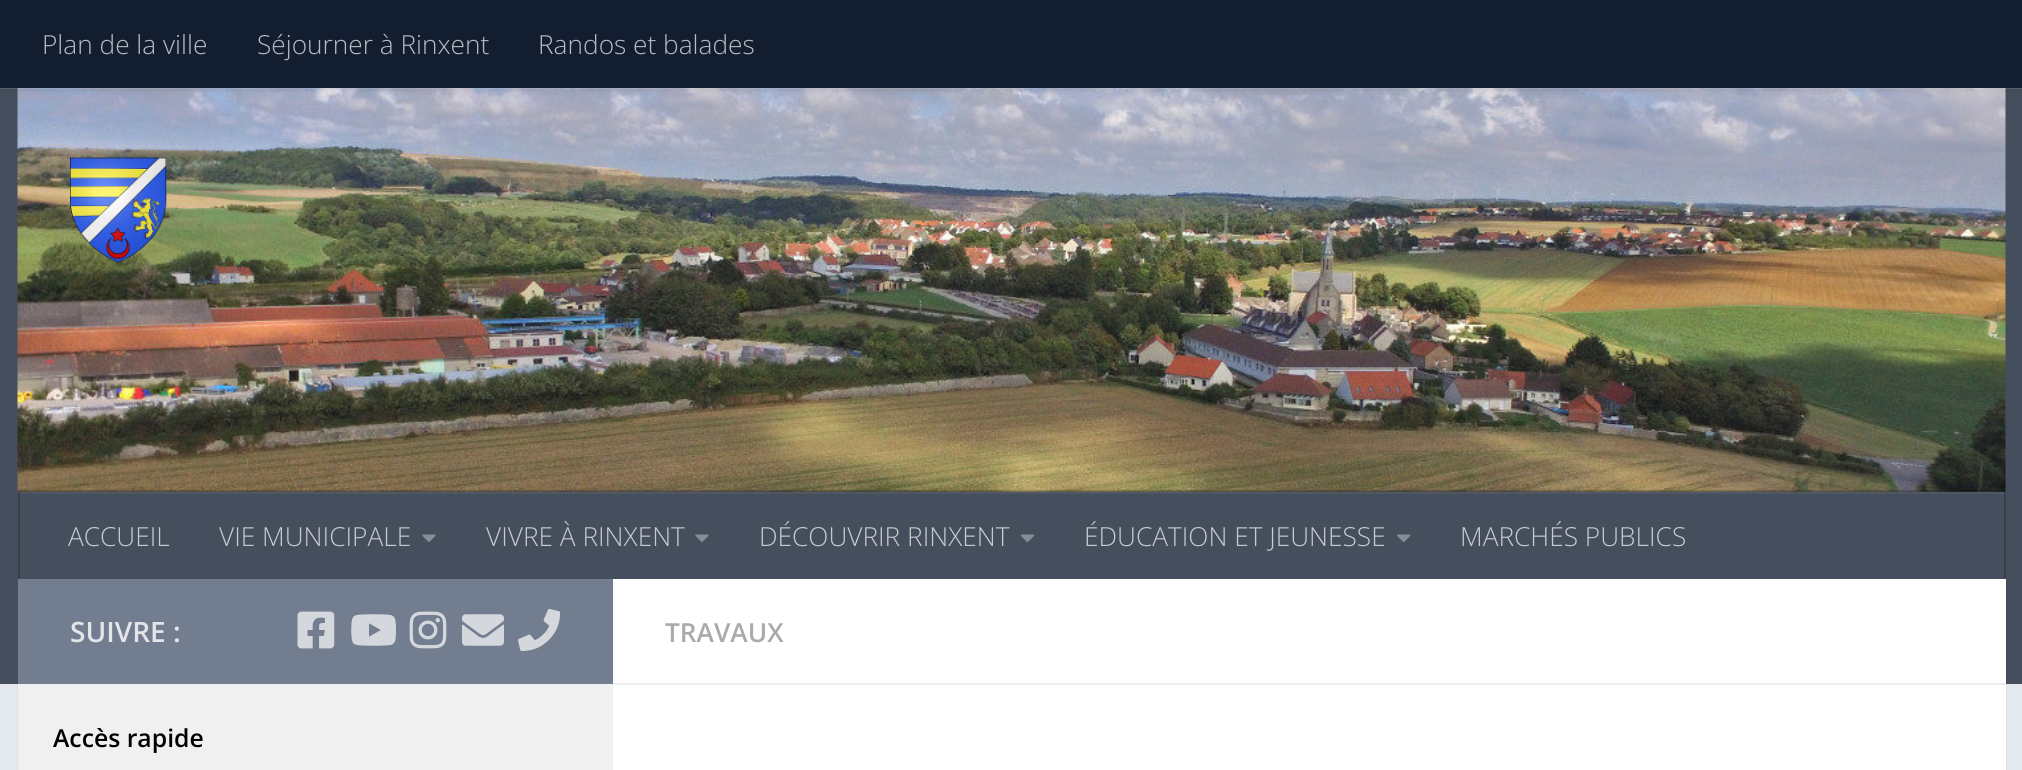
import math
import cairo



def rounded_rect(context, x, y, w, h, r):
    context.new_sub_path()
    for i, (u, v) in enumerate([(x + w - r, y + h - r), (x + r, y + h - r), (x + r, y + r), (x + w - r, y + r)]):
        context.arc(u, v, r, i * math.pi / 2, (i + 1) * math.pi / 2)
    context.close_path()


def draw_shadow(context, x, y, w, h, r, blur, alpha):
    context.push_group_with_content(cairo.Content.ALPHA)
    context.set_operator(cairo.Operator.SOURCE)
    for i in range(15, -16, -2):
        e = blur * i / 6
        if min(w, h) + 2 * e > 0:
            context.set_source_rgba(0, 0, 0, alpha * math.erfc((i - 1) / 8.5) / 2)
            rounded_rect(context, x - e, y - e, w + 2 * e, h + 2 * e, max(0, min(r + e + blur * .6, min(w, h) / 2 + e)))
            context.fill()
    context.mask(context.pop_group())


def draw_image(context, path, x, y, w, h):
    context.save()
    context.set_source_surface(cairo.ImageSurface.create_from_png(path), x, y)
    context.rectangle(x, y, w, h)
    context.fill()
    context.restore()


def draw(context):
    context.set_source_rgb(229 / 255, 234 / 255, 241 / 255)
    context.paint()
    context.set_source_rgb(0, 0, 0)
    draw_shadow(context, 18, 581, 1988, 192, 0, 1, 0.1)
    context.set_source_rgb(69 / 255, 78 / 255, 92 / 255)
    context.rectangle(0, 88, 2022, 596)
    context.fill()
    context.set_source_rgb(78 / 255, 87 / 255, 100 / 255)
    context.rectangle(18, 492, 1988, 2)
    context.fill()
    draw_image(context, "images/1.png", 17, 88, 1989, 404)
    context.set_source_rgba(1, 1, 1, 0.15)
    context.rectangle(0, 88, 2022, 1)
    context.fill()
    context.set_source_rgb(0, 0, 0)
    draw_shadow(context, 0, 0, 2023, 88, 0, 4.5, 0.2)
    context.set_source_rgb(18 / 255, 29 / 255, 48 / 255)
    context.rectangle(0, 0, 2022, 88)
    context.fill()
    draw_image(context, "images/2.png", 70, 157, 97, 106)
    context.set_source_rgba(0, 0, 0, 0.2)
    context.new_path()
    context.move_to(18, 490)
    context.line_to(18, 492)
    context.line_to(2006, 492)
    context.line_to(2006, 578)
    context.line_to(2006, 490)
    context.close_path()
    context.fill()
    context.set_source_rgb(55 / 255, 62 / 255, 74 / 255)
    context.rectangle(2004, 492, 2, 87)
    context.fill()
    context.set_source_rgb(65 / 255, 72 / 255, 83 / 255)
    context.rectangle(2004, 492, 2, 2)
    context.fill()
    context.set_source_rgb(55 / 255, 62 / 255, 74 / 255)
    context.rectangle(18, 492, 2, 87)
    context.fill()
    context.set_source_rgb(65 / 255, 72 / 255, 83 / 255)
    context.rectangle(18, 492, 2, 2)
    context.fill()
    draw_image(context, "images/3.png", 422, 534, 14, 8)
    draw_image(context, "images/3.png", 695, 534, 14, 8)
    draw_image(context, "images/4.png", 1020, 534, 15, 8)
    draw_image(context, "images/5.png", 1397, 534, 14, 8)
    context.set_source_rgb(1, 1, 1)
    context.rectangle(613, 579, 1393, 191)
    context.fill()
    context.set_source_rgb(114 / 255, 126 / 255, 143 / 255)
    context.rectangle(18, 579, 595, 105)
    context.fill()
    draw_image(context, "images/6.png", 297, 611, 38, 38)
    draw_image(context, "images/7.png", 351, 614, 45, 32)
    draw_image(context, "images/8.png", 409, 611, 38, 38)
    draw_image(context, "images/9.png", 462, 614, 42, 32)
    draw_image(context, "images/10.png", 518, 609, 43, 42)
    context.set_source_rgb(238 / 255, 238 / 255, 238 / 255)
    context.rectangle(613, 683, 1393, 2)
    context.fill()
    context.set_source_rgb(240 / 255, 240 / 255, 240 / 255)
    context.rectangle(18, 684, 595, 86)
    context.fill()
    context.select_font_face("Open Sans Light")
    context.set_font_size(26.25)
    context.set_source_rgb(184 / 255, 187 / 255, 193 / 255)
    context.move_to(42, 54)
    context.show_text("Plan de la ville")
    context.move_to(257, 54)
    context.show_text("Séjourner à Rinxent")
    context.move_to(538, 54)
    context.show_text("Randos et balades")
    context.set_source_rgb(199 / 255, 202 / 255, 206 / 255)
    context.move_to(68, 546)
    context.show_text("ACCUEIL")
    context.move_to(219, 546)
    context.show_text("VIE MUNICIPALE")
    context.move_to(486, 546)
    context.show_text("VIVRE À RINXENT")
    context.move_to(759, 546)
    context.show_text("DÉCOUVRIR RINXENT")
    context.move_to(1084, 546)
    context.show_text("ÉDUCATION ET JEUNESSE")
    context.move_to(1460, 546)
    context.show_text("MARCHÉS PUBLICS")
    context.select_font_face("Open Sans SemiBold")
    context.set_font_size(28)
    context.set_source_rgb(227 / 255, 229 / 255, 233 / 255)
    context.move_to(70, 642)
    context.show_text("SUIVRE :")
    context.set_font_size(24.75)
    context.set_source_rgb(0, 0, 0)
    context.move_to(53, 747)
    context.show_text("Accès rapide")
    context.set_font_size(26.25)
    context.set_source_rgb(170 / 255, 170 / 255, 170 / 255)
    context.move_to(665, 642)
    context.show_text("TRAVAUX")


surface = cairo.ImageSurface(cairo.Format.RGB24, 2022, 770)
context = cairo.Context(surface)
options = cairo.FontOptions()
options.set_hint_metrics(cairo.HintMetrics.OFF)
options.set_hint_style(cairo.HintStyle.NONE)
context.set_font_options(options)
context.set_miter_limit(4)
draw(context)
surface.write_to_png("out.png")
